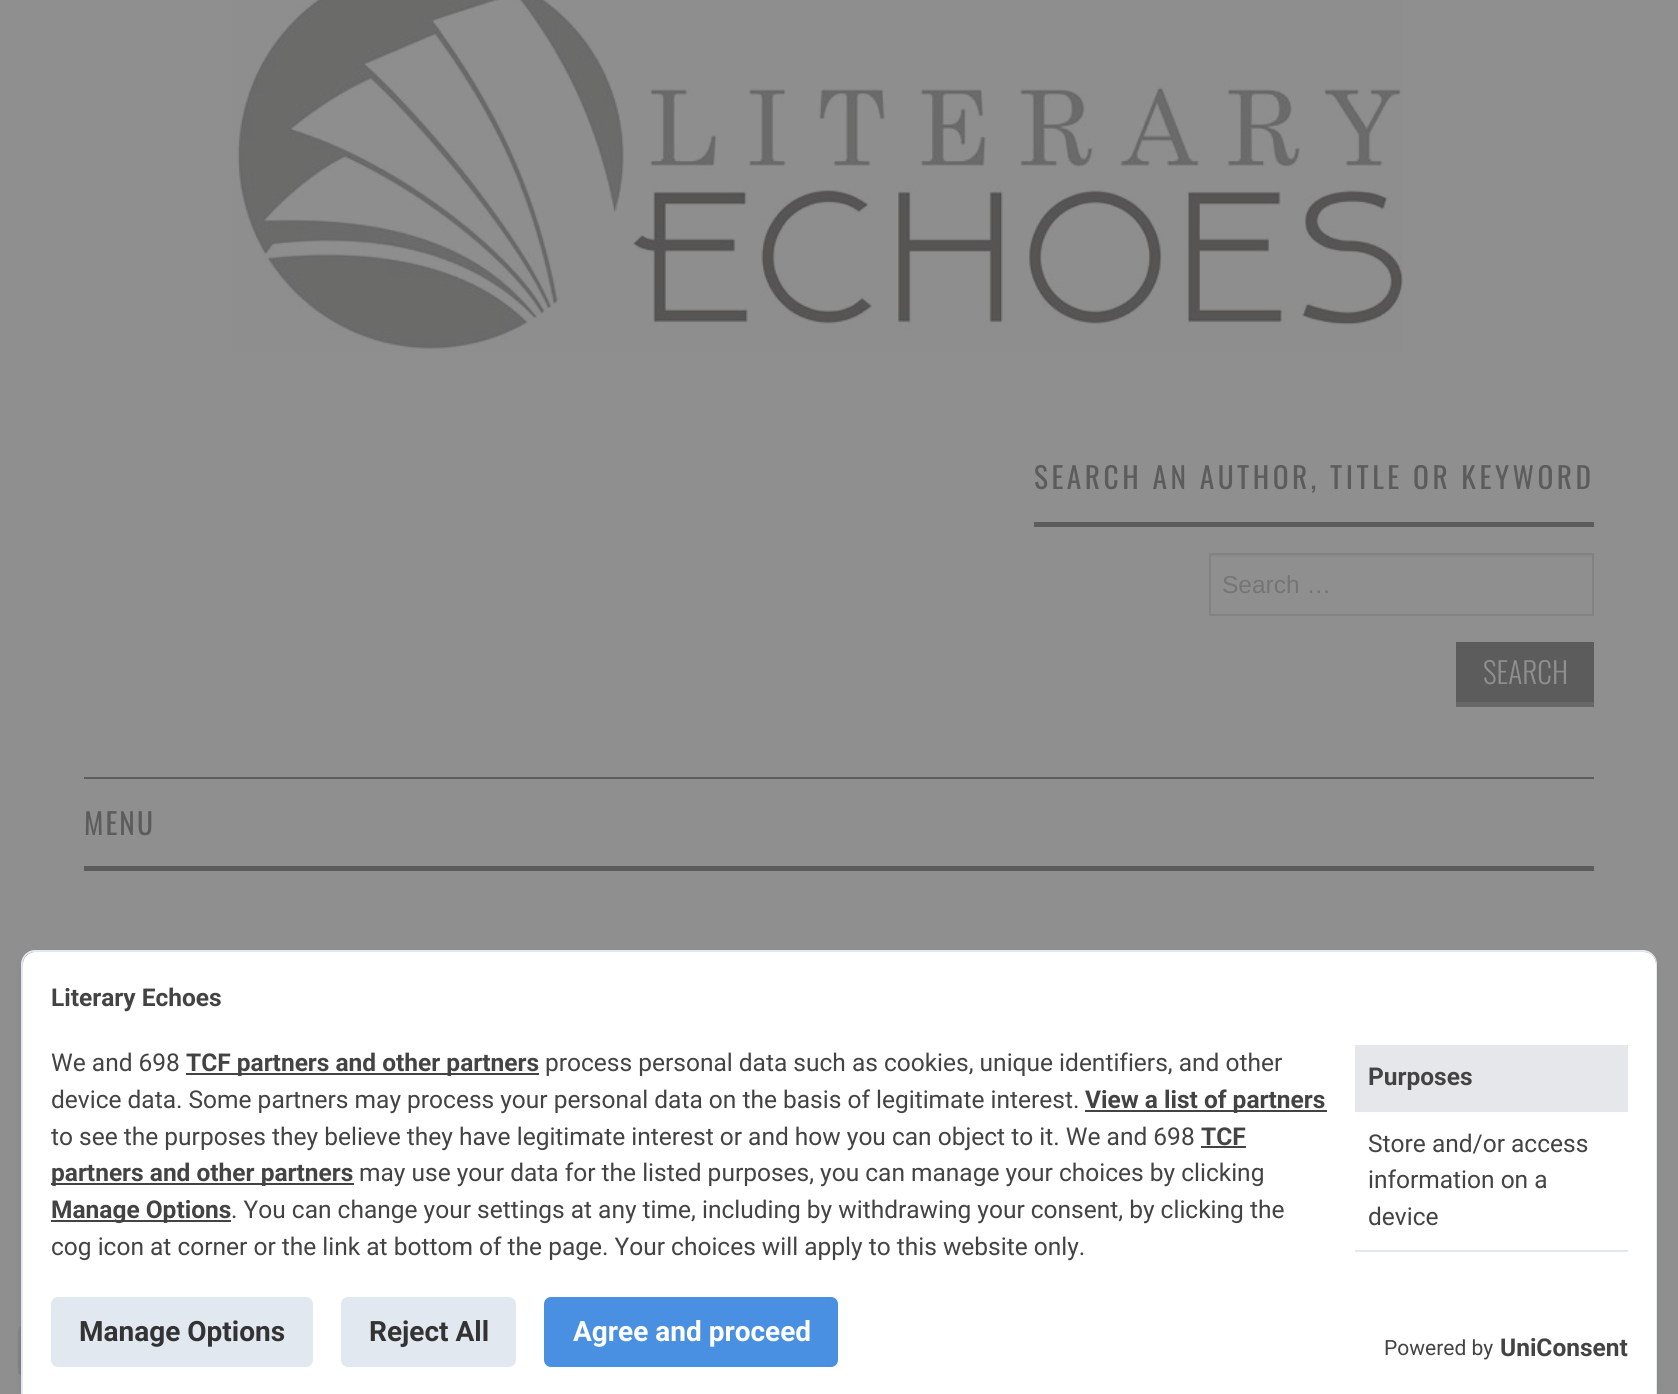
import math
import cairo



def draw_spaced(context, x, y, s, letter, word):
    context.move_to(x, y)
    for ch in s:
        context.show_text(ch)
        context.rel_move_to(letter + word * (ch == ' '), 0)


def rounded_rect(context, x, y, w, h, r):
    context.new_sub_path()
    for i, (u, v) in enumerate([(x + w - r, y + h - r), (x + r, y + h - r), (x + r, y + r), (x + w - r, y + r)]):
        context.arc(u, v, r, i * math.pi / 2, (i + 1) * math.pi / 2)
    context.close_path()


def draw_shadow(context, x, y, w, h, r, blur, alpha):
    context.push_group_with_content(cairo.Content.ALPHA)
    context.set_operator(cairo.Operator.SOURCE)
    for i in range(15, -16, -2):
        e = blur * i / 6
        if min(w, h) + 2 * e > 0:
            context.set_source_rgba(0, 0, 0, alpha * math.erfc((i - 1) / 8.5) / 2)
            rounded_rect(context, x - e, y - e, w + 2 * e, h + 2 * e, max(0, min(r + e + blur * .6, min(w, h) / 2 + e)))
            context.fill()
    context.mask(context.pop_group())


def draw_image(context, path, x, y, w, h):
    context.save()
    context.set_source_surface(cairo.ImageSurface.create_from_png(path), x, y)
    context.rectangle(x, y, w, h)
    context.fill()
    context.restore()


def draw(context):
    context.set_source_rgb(143 / 255, 143 / 255, 143 / 255)
    context.paint()
    draw_image(context, "images/1.png", 231, 0, 1172, 352)
    context.set_source_rgb(92 / 255, 92 / 255, 92 / 255)
    context.rectangle(1034, 522, 560, 5)
    context.fill()
    context.set_source_rgb(138 / 255, 138 / 255, 138 / 255)
    context.rectangle(1211, 555, 382, 2)
    context.fill()
    context.rectangle(1210, 554, 383, 61)
    context.set_source_rgb(130 / 255, 130 / 255, 130 / 255)
    context.stroke()
    context.set_source_rgb(92 / 255, 92 / 255, 92 / 255)
    context.rectangle(1456, 642, 138, 60)
    context.fill()
    context.set_source_rgb(104 / 255, 104 / 255, 104 / 255)
    context.rectangle(1456, 702, 138, 5)
    context.fill()
    context.set_source_rgb(92 / 255, 92 / 255, 92 / 255)
    context.rectangle(84, 777, 1510, 2)
    context.fill()
    context.rectangle(84, 866, 1510, 5)
    context.fill()
    gradient = cairo.LinearGradient(22, 1380, 66, 1322)
    gradient.add_color_stop_rgba(0, 129 / 255, 129 / 255, 129 / 255, 1)
    gradient.add_color_stop_rgba(1, 135 / 255, 135 / 255, 135 / 255, 1)
    context.set_source(gradient)
    rounded_rect(context, 18, 1325, 52, 52, 7)
    context.fill()
    context.set_source_rgb(0, 0, 0)
    draw_shadow(context, 23, 959, 1633, 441, 12, 5, 0.1)
    context.set_source_rgb(1, 1, 1)
    context.new_path()
    context.move_to(35, 952)
    context.line_to(1644, 952)
    context.curve_to(1650.5, 952, 1656, 957.5, 1656, 964)
    context.line_to(1656, 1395)
    context.line_to(23, 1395)
    context.line_to(23, 964)
    context.curve_to(23, 957.5, 28.5, 952, 35, 952)
    context.close_path()
    context.fill()
    context.set_source_rgb(226 / 255, 232 / 255, 240 / 255)
    context.set_fill_rule(cairo.FillRule.EVEN_ODD)
    context.new_path()
    context.move_to(35, 950)
    context.line_to(1643, 950)
    context.curve_to(1651, 950, 1657, 957, 1657, 964)
    context.line_to(1657, 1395)
    context.line_to(21, 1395)
    context.line_to(21, 964)
    context.curve_to(21, 957, 27, 950, 35, 950)
    context.close_path()
    context.move_to(35, 952)
    context.line_to(1643, 952)
    context.curve_to(1650, 952, 1656, 957, 1656, 964)
    context.line_to(1656, 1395)
    context.line_to(23, 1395)
    context.line_to(23, 964)
    context.curve_to(23, 957, 28, 952, 35, 952)
    context.close_path()
    context.fill()
    context.set_source_rgb(67 / 255, 67 / 255, 67 / 255)
    context.rectangle(186, 1073, 353, 2)
    context.fill()
    context.rectangle(1085, 1110, 242, 2)
    context.fill()
    context.rectangle(1201, 1146, 45, 2)
    context.fill()
    context.rectangle(51, 1183, 303, 2)
    context.fill()
    context.rectangle(51, 1220, 180, 2)
    context.fill()
    context.set_source_rgb(229 / 255, 231 / 255, 235 / 255)
    context.rectangle(1355, 1045, 273, 65)
    context.fill()
    context.set_source_rgb(226 / 255, 232 / 255, 240 / 255)
    context.rectangle(1355, 1110, 273, 2)
    context.fill()
    context.rectangle(1355, 1250, 273, 2)
    context.fill()
    rounded_rect(context, 51, 1297, 262, 70, 7)
    context.fill()
    rounded_rect(context, 341, 1297, 175, 70, 7)
    context.fill()
    context.set_source_rgb(74 / 255, 144 / 255, 226 / 255)
    rounded_rect(context, 544, 1297, 294, 70, 7)
    context.fill()
    context.select_font_face("Oswald")
    context.set_font_size(29.4)
    context.set_source_rgb(92 / 255, 92 / 255, 92 / 255)
    draw_spaced(context, 1034, 489, "SEARCH AN AUTHOR, TITLE OR KEYWORD", 3.5, 0)
    context.select_font_face("Liberation Sans")
    context.set_font_size(24.5)
    context.set_source_rgb(117 / 255, 117 / 255, 117 / 255)
    context.move_to(1222, 593)
    context.show_text("Search …")
    context.select_font_face("Oswald Light")
    context.set_font_size(29.4)
    context.set_source_rgb(143 / 255, 143 / 255, 143 / 255)
    context.move_to(1483, 684)
    context.show_text("SEARCH")
    context.select_font_face("Oswald")
    context.set_source_rgb(92 / 255, 92 / 255, 92 / 255)
    draw_spaced(context, 84, 835, "MENU", 2, 0)
    context.select_font_face("Roboto", cairo.FontSlant.NORMAL, cairo.FontWeight.BOLD)
    context.set_font_size(24.5)
    context.set_source_rgb(67 / 255, 67 / 255, 67 / 255)
    context.move_to(51, 1006)
    context.show_text("Literary Echoes")
    context.select_font_face("Roboto")
    context.move_to(51, 1071)
    context.show_text("We and 698")
    context.select_font_face("Roboto", cairo.FontSlant.NORMAL, cairo.FontWeight.BOLD)
    context.move_to(186, 1071)
    context.show_text("TCF partners and other partners")
    context.select_font_face("Roboto")
    context.move_to(545, 1071)
    context.show_text("process personal data such as cookies, unique identifiers, and other")
    context.move_to(51, 1108)
    context.show_text("device data. Some partners may process your personal data on the basis of legitimate interest.")
    context.select_font_face("Roboto", cairo.FontSlant.NORMAL, cairo.FontWeight.BOLD)
    context.move_to(1085, 1108)
    context.show_text("View a list of partners")
    context.select_font_face("Roboto")
    context.move_to(51, 1145)
    context.show_text("to see the purposes they believe they have legitimate interest or and how you can object to it. We and 698")
    context.select_font_face("Roboto", cairo.FontSlant.NORMAL, cairo.FontWeight.BOLD)
    context.move_to(1201, 1145)
    context.show_text("TCF")
    context.move_to(51, 1181)
    context.show_text("partners and other partners")
    context.select_font_face("Roboto")
    context.move_to(359, 1181)
    context.show_text("may use your data for the listed purposes, you can manage your choices by clicking")
    context.select_font_face("Roboto", cairo.FontSlant.NORMAL, cairo.FontWeight.BOLD)
    context.move_to(51, 1218)
    context.show_text("Manage Options")
    context.select_font_face("Roboto")
    context.move_to(231, 1218)
    context.show_text(". You can change your settings at any time, including by withdrawing your consent, by clicking the")
    context.move_to(51, 1255)
    context.show_text("cog icon at corner or the link at bottom of the page. Your choices will apply to this website only.")
    context.select_font_face("Roboto", cairo.FontSlant.NORMAL, cairo.FontWeight.BOLD)
    context.move_to(1368, 1085)
    context.show_text("Purposes")
    context.select_font_face("Roboto")
    context.move_to(1368, 1152)
    context.show_text("Store and/or access")
    context.move_to(1368, 1188)
    context.show_text("information on a")
    context.move_to(1368, 1225)
    context.show_text("device")
    context.select_font_face("Roboto", cairo.FontSlant.NORMAL, cairo.FontWeight.BOLD)
    context.set_font_size(28)
    context.set_source_rgb(51 / 255, 51 / 255, 51 / 255)
    context.move_to(79, 1341)
    context.show_text("Manage Options")
    context.move_to(369, 1341)
    context.show_text("Reject All")
    context.set_source_rgb(1, 1, 1)
    context.move_to(573, 1341)
    context.show_text("Agree and proceed")
    context.select_font_face("Roboto")
    context.set_font_size(21)
    context.set_source_rgb(67 / 255, 67 / 255, 67 / 255)
    context.move_to(1384, 1355)
    context.show_text("Powered by")
    context.select_font_face("Roboto", cairo.FontSlant.NORMAL, cairo.FontWeight.BOLD)
    context.set_font_size(24.5)
    context.move_to(1500, 1356)
    context.show_text("UniConsent")


surface = cairo.ImageSurface(cairo.Format.RGB24, 1678, 1394)
context = cairo.Context(surface)
options = cairo.FontOptions()
options.set_hint_metrics(cairo.HintMetrics.OFF)
options.set_hint_style(cairo.HintStyle.NONE)
context.set_font_options(options)
context.set_miter_limit(4)
draw(context)
surface.write_to_png("out.png")
